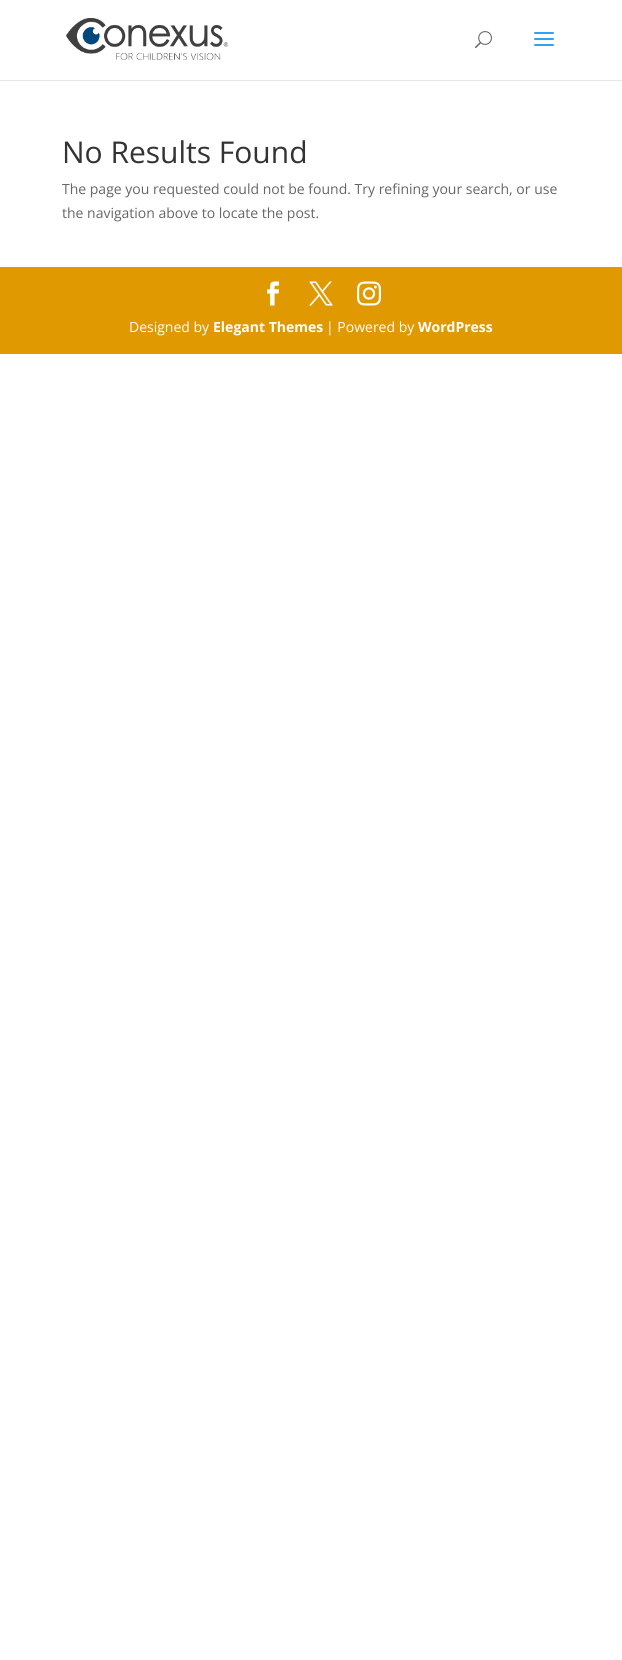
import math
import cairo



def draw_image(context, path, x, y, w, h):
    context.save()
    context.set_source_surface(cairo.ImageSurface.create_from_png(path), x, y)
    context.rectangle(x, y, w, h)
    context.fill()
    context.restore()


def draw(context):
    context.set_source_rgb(1, 1, 1)
    context.paint()
    context.set_source_rgb(230 / 255, 230 / 255, 230 / 255)
    context.rectangle(0, 80, 622, 1)
    context.fill()
    draw_image(context, "images/1.png", 66, 18, 163, 42)
    draw_image(context, "images/2.png", 475, 31, 17, 18)
    draw_image(context, "images/3.png", 534, 32, 20, 14)
    context.set_source_rgb(224 / 255, 153 / 255, 0)
    context.rectangle(0, 267, 622, 87)
    context.fill()
    draw_image(context, "images/4.png", 267, 281, 13, 25)
    draw_image(context, "images/5.png", 309, 281, 24, 25)
    draw_image(context, "images/6.png", 357, 281, 24, 25)
    context.select_font_face("Open Sans")
    context.set_font_size(30)
    context.set_source_rgb(51 / 255, 51 / 255, 51 / 255)
    context.move_to(62, 163)
    context.show_text("No Results Found")
    context.set_font_size(14)
    context.set_source_rgb(102 / 255, 102 / 255, 102 / 255)
    context.move_to(62, 194)
    context.show_text("The page you requested could not be found. Try refining your search, or use")
    context.move_to(62, 218)
    context.show_text("the navigation above to locate the post.")
    context.set_source_rgb(1, 1, 1)
    context.move_to(129, 332)
    context.show_text("Designed by")
    context.select_font_face("Open Sans", cairo.FontSlant.NORMAL, cairo.FontWeight.BOLD)
    context.move_to(213, 332)
    context.show_text("Elegant Themes")
    context.select_font_face("Open Sans")
    context.move_to(326, 332)
    context.show_text("| Powered by")
    context.select_font_face("Open Sans", cairo.FontSlant.NORMAL, cairo.FontWeight.BOLD)
    context.move_to(418, 332)
    context.show_text("WordPress")


surface = cairo.ImageSurface(cairo.Format.RGB24, 622, 1660)
context = cairo.Context(surface)
options = cairo.FontOptions()
options.set_hint_metrics(cairo.HintMetrics.OFF)
options.set_hint_style(cairo.HintStyle.NONE)
context.set_font_options(options)
context.set_miter_limit(4)
draw(context)
surface.write_to_png("out.png")
